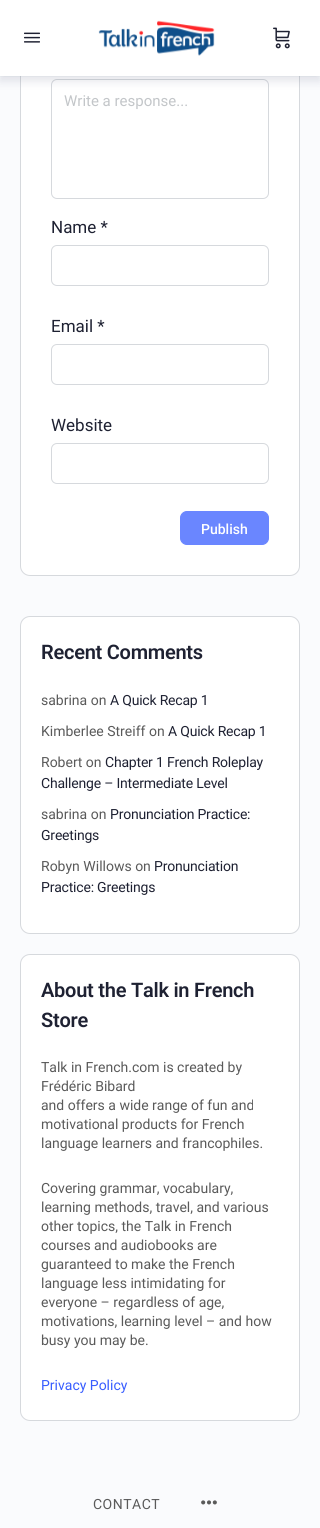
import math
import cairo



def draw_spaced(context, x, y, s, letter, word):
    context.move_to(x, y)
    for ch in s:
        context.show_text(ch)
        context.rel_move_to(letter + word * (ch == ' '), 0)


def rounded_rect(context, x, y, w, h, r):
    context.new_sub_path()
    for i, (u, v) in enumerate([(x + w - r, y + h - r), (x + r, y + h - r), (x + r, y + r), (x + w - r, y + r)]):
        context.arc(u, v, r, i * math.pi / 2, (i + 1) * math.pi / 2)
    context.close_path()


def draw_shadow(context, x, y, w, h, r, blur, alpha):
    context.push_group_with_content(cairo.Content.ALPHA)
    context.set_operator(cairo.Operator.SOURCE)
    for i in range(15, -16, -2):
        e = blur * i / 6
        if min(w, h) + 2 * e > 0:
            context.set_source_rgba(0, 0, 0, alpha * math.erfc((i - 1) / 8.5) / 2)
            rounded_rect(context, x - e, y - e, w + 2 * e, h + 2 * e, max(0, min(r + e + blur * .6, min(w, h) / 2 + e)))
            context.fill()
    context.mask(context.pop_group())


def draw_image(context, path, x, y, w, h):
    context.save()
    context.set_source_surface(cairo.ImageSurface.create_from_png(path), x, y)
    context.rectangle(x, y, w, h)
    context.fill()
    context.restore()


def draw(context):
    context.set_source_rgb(250 / 255, 251 / 255, 253 / 255)
    context.paint()
    context.set_source_rgb(1, 1, 1)
    rounded_rect(context, 20.5, -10.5, 279, 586, 9.5)
    context.fill_preserve()
    context.set_source_rgb(214 / 255, 217 / 255, 221 / 255)
    context.set_line_width(1)
    context.stroke()
    rounded_rect(context, 51.5, 79.5, 217, 119, 5.5)
    context.stroke()
    context.set_source_rgb(65 / 255, 71 / 255, 108 / 255)
    draw_shadow(context, 0, 5, 320, 76, 0, 5, 0.15)
    context.set_source_rgba(139 / 255, 141 / 255, 157 / 255, 0.05)
    context.rectangle(0, 76, 320, 1)
    context.fill()
    context.set_source_rgb(1, 1, 1)
    context.rectangle(0, 0, 320, 76)
    context.fill()
    draw_image(context, "images/1.png", 24, 32, 16, 11)
    draw_image(context, "images/2.png", 98, 20, 117, 36)
    draw_image(context, "images/3.png", 273, 27, 17, 22)
    rounded_rect(context, 51.5, 245.5, 217, 40, 5.5)
    context.set_source_rgb(214 / 255, 217 / 255, 221 / 255)
    context.stroke()
    rounded_rect(context, 51.5, 344.5, 217, 40, 5.5)
    context.stroke()
    rounded_rect(context, 51.5, 443.5, 217, 40, 5.5)
    context.stroke()
    context.set_source_rgb(106 / 255, 134 / 255, 1)
    rounded_rect(context, 180.5, 511.5, 88, 33, 6.5)
    context.fill_preserve()
    context.stroke()
    context.set_source_rgb(1, 1, 1)
    rounded_rect(context, 20.5, 616.5, 279, 317, 9.5)
    context.fill_preserve()
    context.set_source_rgb(214 / 255, 217 / 255, 221 / 255)
    context.stroke()
    context.set_source_rgb(1, 1, 1)
    rounded_rect(context, 20.5, 954.5, 279, 466, 9.5)
    context.fill_preserve()
    context.set_source_rgb(214 / 255, 217 / 255, 221 / 255)
    context.stroke()
    draw_image(context, "images/4.png", 201, 1500, 16, 5)
    context.select_font_face("Roboto")
    context.set_font_size(15)
    context.set_source_rgb(195 / 255, 198 / 255, 201 / 255)
    context.move_to(64, 106)
    context.show_text("Write a response...")
    context.set_font_size(17)
    context.set_source_rgb(30 / 255, 33 / 255, 50 / 255)
    context.move_to(51, 233)
    context.show_text("Name *")
    context.move_to(51, 332)
    context.show_text("Email *")
    context.move_to(51, 431)
    context.show_text("Website")
    context.select_font_face("Roboto Medium")
    context.set_font_size(14)
    context.set_source_rgb(1, 1, 1)
    context.move_to(201, 534)
    context.show_text("Publish")
    context.select_font_face("Roboto SemiBold")
    context.set_font_size(20)
    context.set_source_rgb(30 / 255, 33 / 255, 50 / 255)
    draw_spaced(context, 41, 659, "Recent Comments", -0.25, 0)
    context.select_font_face("Roboto")
    context.set_font_size(14)
    context.set_source_rgb(90 / 255, 90 / 255, 90 / 255)
    context.move_to(41, 705)
    context.show_text("sabrina on")
    context.set_source_rgb(30 / 255, 33 / 255, 50 / 255)
    draw_spaced(context, 110, 705, "A Quick Recap 1", -0.2, 0)
    context.set_source_rgb(90 / 255, 90 / 255, 90 / 255)
    context.move_to(41, 736)
    context.show_text("Kimberlee Streiff on")
    context.set_source_rgb(30 / 255, 33 / 255, 50 / 255)
    draw_spaced(context, 168, 736, "A Quick Recap 1", -0.2, 0)
    context.set_source_rgb(90 / 255, 90 / 255, 90 / 255)
    context.move_to(41, 767)
    context.show_text("Robert on")
    context.set_source_rgb(30 / 255, 33 / 255, 50 / 255)
    draw_spaced(context, 105, 767, "Chapter 1 French Roleplay", -0.2, 0)
    draw_spaced(context, 41, 788, "Challenge – Intermediate Level", -0.2, 0)
    context.set_source_rgb(90 / 255, 90 / 255, 90 / 255)
    context.move_to(41, 819)
    context.show_text("sabrina on")
    context.set_source_rgb(30 / 255, 33 / 255, 50 / 255)
    draw_spaced(context, 110, 819, "Pronunciation Practice:", -0.2, 0)
    draw_spaced(context, 41, 840, "Greetings", -0.2, 0)
    context.set_source_rgb(90 / 255, 90 / 255, 90 / 255)
    context.move_to(41, 871)
    context.show_text("Robyn Willows on")
    context.set_source_rgb(30 / 255, 33 / 255, 50 / 255)
    draw_spaced(context, 154, 871, "Pronunciation", -0.2, 0)
    draw_spaced(context, 41, 892, "Practice: Greetings", -0.2, 0)
    context.select_font_face("Roboto SemiBold")
    context.set_font_size(20)
    draw_spaced(context, 41, 997, "About the Talk in French", -0.25, 0)
    draw_spaced(context, 41, 1027, "Store", -0.25, 0)
    context.select_font_face("Roboto")
    context.set_font_size(14)
    context.set_source_rgb(90 / 255, 90 / 255, 90 / 255)
    context.move_to(41, 1072)
    context.show_text("Talk in French.com is created by")
    context.move_to(41, 1091)
    context.show_text("Frédéric Bibard")
    context.move_to(41, 1110)
    context.show_text("and offers a wide range of fun and")
    context.move_to(41, 1129)
    context.show_text("motivational products for French")
    context.move_to(41, 1148)
    context.show_text("language learners and francophiles.")
    context.move_to(41, 1193)
    context.show_text("Covering grammar, vocabulary,")
    context.move_to(41, 1212)
    context.show_text("learning methods, travel, and various")
    context.move_to(41, 1231)
    context.show_text("other topics, the Talk in French")
    context.move_to(41, 1250)
    context.show_text("courses and audiobooks are")
    context.move_to(41, 1269)
    context.show_text("guaranteed to make the French")
    context.move_to(41, 1288)
    context.show_text("language less intimidating for")
    context.move_to(41, 1307)
    context.show_text("everyone – regardless of age,")
    context.move_to(41, 1326)
    context.show_text("motivations, learning level – and how")
    context.move_to(41, 1345)
    context.show_text("busy you may be.")
    context.set_source_rgb(56 / 255, 93 / 255, 1)
    context.move_to(41, 1390)
    context.show_text("Privacy Policy")
    context.set_source_rgb(90 / 255, 90 / 255, 90 / 255)
    draw_spaced(context, 93, 1509, "CONTACT", 0.5, 0)


surface = cairo.ImageSurface(cairo.Format.RGB24, 320, 1528)
context = cairo.Context(surface)
options = cairo.FontOptions()
options.set_hint_metrics(cairo.HintMetrics.OFF)
options.set_hint_style(cairo.HintStyle.NONE)
context.set_font_options(options)
context.set_miter_limit(4)
draw(context)
surface.write_to_png("out.png")
